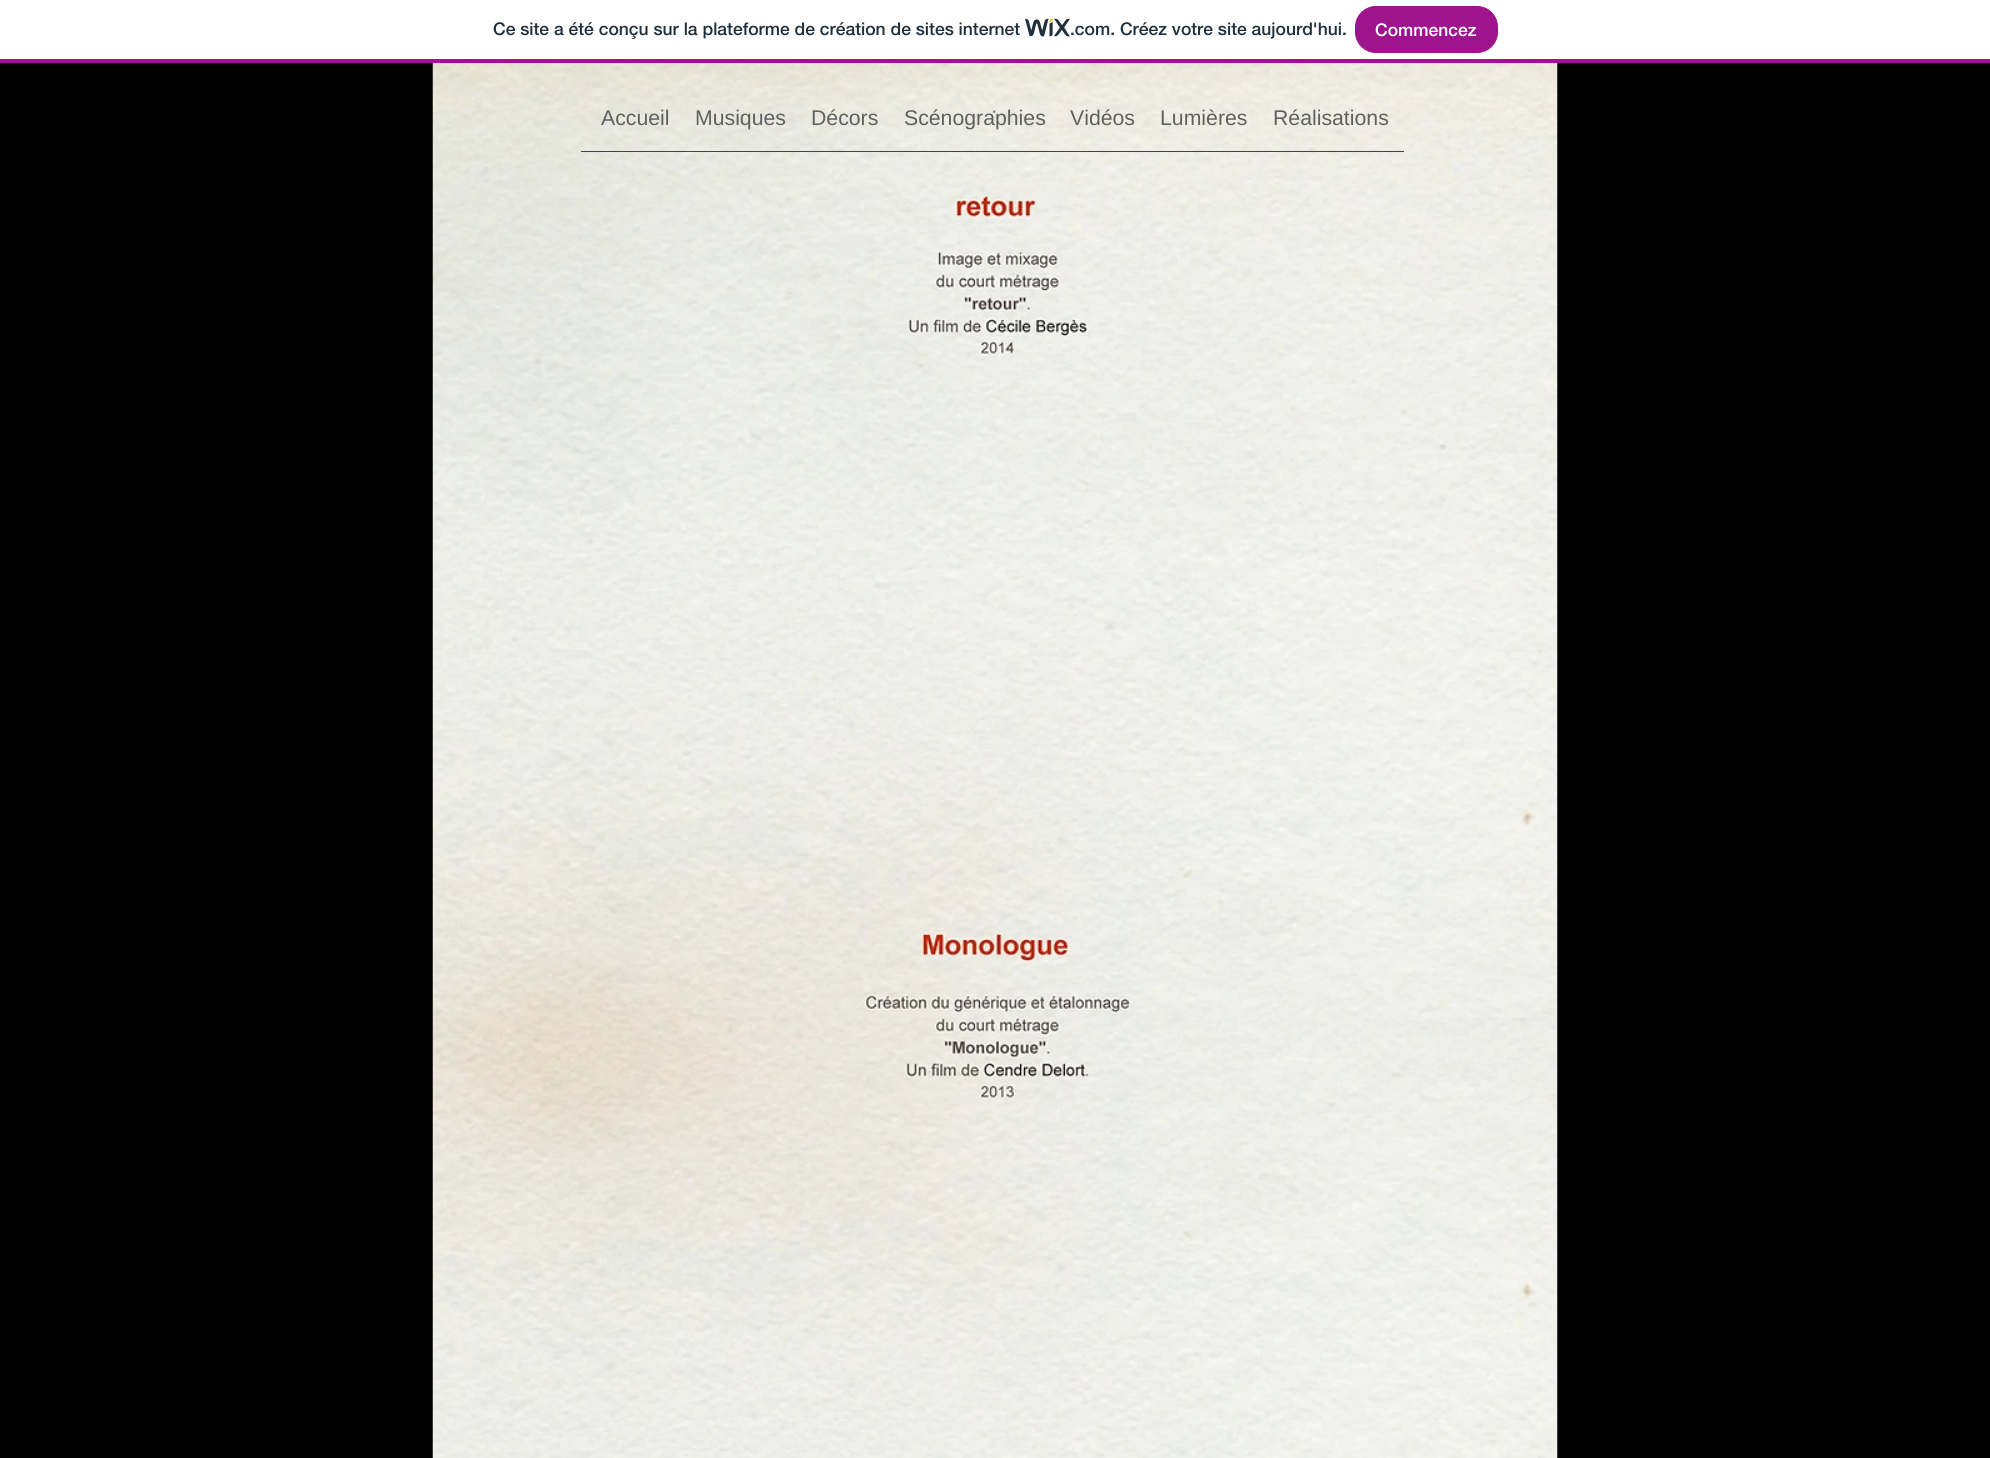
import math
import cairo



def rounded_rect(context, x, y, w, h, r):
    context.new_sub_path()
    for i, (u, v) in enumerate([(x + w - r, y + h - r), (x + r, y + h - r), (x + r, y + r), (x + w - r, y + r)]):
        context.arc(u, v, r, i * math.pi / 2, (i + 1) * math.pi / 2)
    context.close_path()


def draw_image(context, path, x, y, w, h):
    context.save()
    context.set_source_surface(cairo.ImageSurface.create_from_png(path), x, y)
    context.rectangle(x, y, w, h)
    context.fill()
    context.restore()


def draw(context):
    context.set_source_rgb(0, 0, 0)
    context.paint()
    context.set_source_rgb(1, 1, 1)
    context.rectangle(0, 0, 1990, 59)
    context.fill()
    context.set_source_rgb(160 / 255, 19 / 255, 142 / 255)
    context.rectangle(0, 59, 1990, 4)
    context.fill()
    draw_image(context, "images/1.png", 1025, 18, 45, 19)
    rounded_rect(context, 1355.5, 6.5, 142, 46, 20.5)
    context.fill_preserve()
    context.set_line_width(1)
    context.stroke()
    draw_image(context, "images/2.png", 432, 63, 1126, 1395)
    context.set_source_rgb(66 / 255, 66 / 255, 66 / 255)
    context.rectangle(581, 151, 823, 1)
    context.fill()
    context.select_font_face("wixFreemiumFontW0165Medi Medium")
    context.set_font_size(17.5)
    context.set_source_rgb(32 / 255, 48 / 255, 60 / 255)
    context.move_to(493, 35)
    context.show_text("Ce site a été conçu sur la plateforme de création de sites internet")
    context.move_to(1070, 35)
    context.show_text(".com. Créez votre site aujourd'hui.")
    context.set_source_rgb(1, 1, 1)
    context.move_to(1375, 36)
    context.show_text("Commencez")
    context.select_font_face("Liberation Sans")
    context.set_font_size(21.25)
    context.set_source_rgb(96 / 255, 96 / 255, 96 / 255)
    context.move_to(601, 125)
    context.show_text("Accueil")
    context.move_to(695, 125)
    context.show_text("Musiques")
    context.move_to(811, 125)
    context.show_text("Décors")
    context.move_to(904, 125)
    context.show_text("Scénographies")
    context.move_to(1070, 125)
    context.show_text("Vidéos")
    context.move_to(1160, 125)
    context.show_text("Lumières")
    context.move_to(1273, 125)
    context.show_text("Réalisations")


surface = cairo.ImageSurface(cairo.Format.RGB24, 1990, 1458)
context = cairo.Context(surface)
options = cairo.FontOptions()
options.set_hint_metrics(cairo.HintMetrics.OFF)
options.set_hint_style(cairo.HintStyle.NONE)
context.set_font_options(options)
context.set_miter_limit(4)
draw(context)
surface.write_to_png("out.png")
